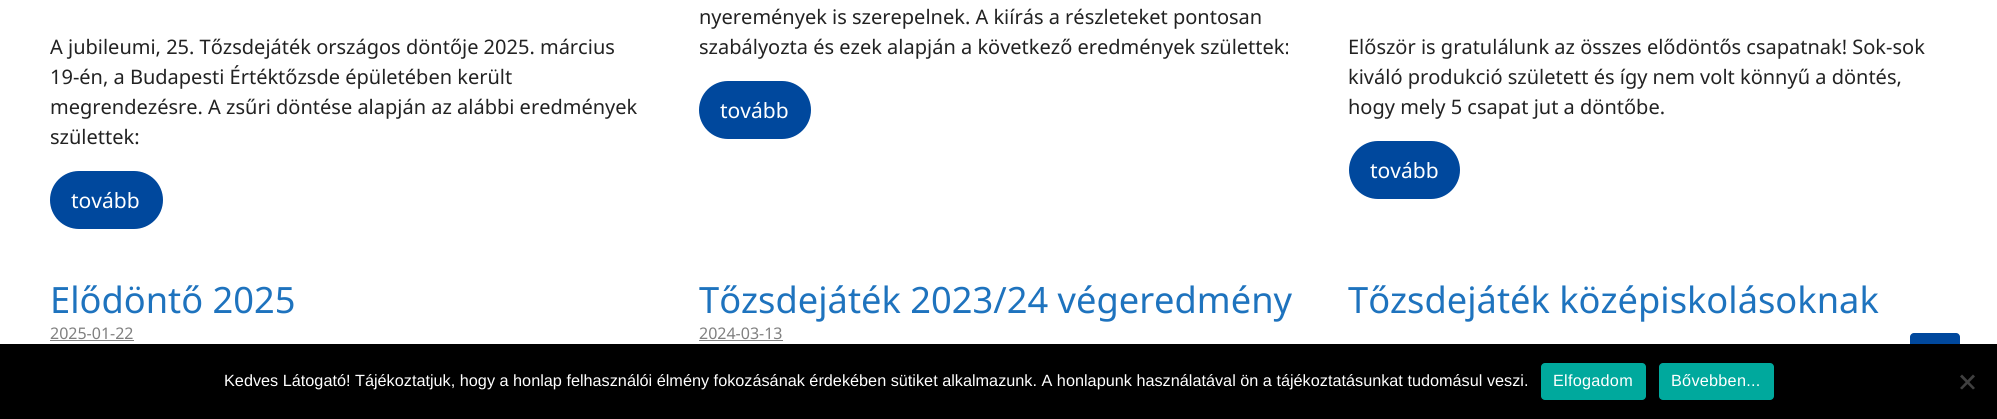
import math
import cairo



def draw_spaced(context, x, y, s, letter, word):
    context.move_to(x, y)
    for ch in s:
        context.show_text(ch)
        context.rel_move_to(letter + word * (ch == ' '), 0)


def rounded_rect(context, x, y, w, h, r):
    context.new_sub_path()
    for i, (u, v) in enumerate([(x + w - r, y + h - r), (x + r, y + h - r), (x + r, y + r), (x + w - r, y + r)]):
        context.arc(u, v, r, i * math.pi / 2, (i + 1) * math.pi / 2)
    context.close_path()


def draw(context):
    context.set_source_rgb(1, 1, 1)
    context.paint()
    context.set_source_rgb(0, 72 / 255, 157 / 255)
    rounded_rect(context, 51.5, 172.5, 110, 55, 27.5)
    context.fill_preserve()
    context.set_line_width(3)
    context.stroke()
    rounded_rect(context, 700.5, 82.5, 109, 55, 27.5)
    context.fill_preserve()
    context.stroke()
    rounded_rect(context, 1350.5, 142.5, 108, 55, 27.5)
    context.fill_preserve()
    context.stroke()
    context.set_source_rgb(128 / 255, 128 / 255, 128 / 255)
    context.rectangle(50, 340, 84, 1)
    context.fill()
    context.rectangle(699, 340, 84, 1)
    context.fill()
    context.set_source_rgb(0, 72 / 255, 157 / 255)
    rounded_rect(context, 1910, 333, 50, 50, 4)
    context.fill()
    context.set_source_rgb(0, 0, 0)
    context.rectangle(0, 344, 1997, 75)
    context.fill()
    context.set_source_rgb(0, 169 / 255, 157 / 255)
    rounded_rect(context, 1541, 363, 105, 37, 4)
    context.fill()
    rounded_rect(context, 1659, 363, 115, 37, 4)
    context.fill()
    context.set_source_rgb(64 / 255, 64 / 255, 64 / 255)
    context.new_path()
    context.move_to(1973, 374.5)
    context.line_to(1975, 376.5)
    context.line_to(1962, 389.5)
    context.line_to(1960, 388)
    context.close_path()
    context.fill()
    context.new_path()
    context.move_to(1960, 376.5)
    context.line_to(1962, 374.5)
    context.line_to(1975, 388)
    context.line_to(1973, 389.5)
    context.close_path()
    context.fill()
    context.select_font_face("Noto Sans")
    context.set_font_size(20)
    context.set_source_rgb(34 / 255, 34 / 255, 34 / 255)
    context.move_to(50, 54)
    context.show_text("A jubileumi, 25. Tőzsdejáték országos döntője 2025. március")
    context.move_to(50, 84)
    context.show_text("19-én, a Budapesti Értéktőzsde épületében került")
    context.move_to(50, 114)
    context.show_text("megrendezésre. A zsűri döntése alapján az alábbi eredmények")
    context.move_to(50, 144)
    context.show_text("születtek:")
    context.set_font_size(21)
    context.set_source_rgb(1, 1, 1)
    context.move_to(71, 208)
    context.show_text("tovább")
    context.set_font_size(20)
    context.set_source_rgb(34 / 255, 34 / 255, 34 / 255)
    context.move_to(699, 24)
    context.show_text("nyeremények is szerepelnek. A kiírás a részleteket pontosan")
    context.move_to(699, 54)
    context.show_text("szabályozta és ezek alapján a következő eredmények születtek:")
    context.set_font_size(21)
    context.set_source_rgb(1, 1, 1)
    context.move_to(720, 118)
    context.show_text("tovább")
    context.set_font_size(20)
    context.set_source_rgb(34 / 255, 34 / 255, 34 / 255)
    context.move_to(1348, 54)
    context.show_text("Először is gratulálunk az összes elődöntős csapatnak! Sok-sok")
    context.move_to(1348, 84)
    context.show_text("kiváló produkció született és így nem volt könnyű a döntés,")
    context.move_to(1348, 114)
    context.show_text("hogy mely 5 csapat jut a döntőbe.")
    context.set_font_size(21)
    context.set_source_rgb(1, 1, 1)
    context.move_to(1370, 178)
    context.show_text("tovább")
    context.set_font_size(36.25)
    context.set_source_rgb(30 / 255, 115 / 255, 190 / 255)
    context.move_to(50, 313)
    context.show_text("Elődöntő 2025")
    context.set_font_size(16)
    context.set_source_rgb(128 / 255, 128 / 255, 128 / 255)
    context.move_to(50, 339)
    context.show_text("2025-01-22")
    context.set_font_size(36.25)
    context.set_source_rgb(30 / 255, 115 / 255, 190 / 255)
    context.move_to(699, 313)
    context.show_text("Tőzsdejáték 2023/24 végeredmény")
    context.set_font_size(16)
    context.set_source_rgb(128 / 255, 128 / 255, 128 / 255)
    context.move_to(699, 339)
    context.show_text("2024-03-13")
    context.set_font_size(36.25)
    context.set_source_rgb(30 / 255, 115 / 255, 190 / 255)
    context.move_to(1348, 313)
    context.show_text("Tőzsdejáték középiskolásoknak")
    context.select_font_face("Liberation Sans")
    context.set_font_size(16.25)
    context.set_source_rgb(1, 1, 1)
    context.move_to(224, 386)
    context.show_text("Kedves Látogató! Tájékoztatjuk, hogy a honlap felhasználói élmény fokozásának érdekében sütiket alkalmazunk. A honlapunk használatával ön a tájékoztatásunkat tudomásul veszi.")
    draw_spaced(context, 1553, 386, "Elfogadom", 0.25, 0)
    draw_spaced(context, 1671, 386, "Bővebben...", 0.25, 0)


surface = cairo.ImageSurface(cairo.Format.RGB24, 1997, 419)
context = cairo.Context(surface)
options = cairo.FontOptions()
options.set_hint_metrics(cairo.HintMetrics.OFF)
options.set_hint_style(cairo.HintStyle.NONE)
context.set_font_options(options)
context.set_miter_limit(4)
draw(context)
surface.write_to_png("out.png")
